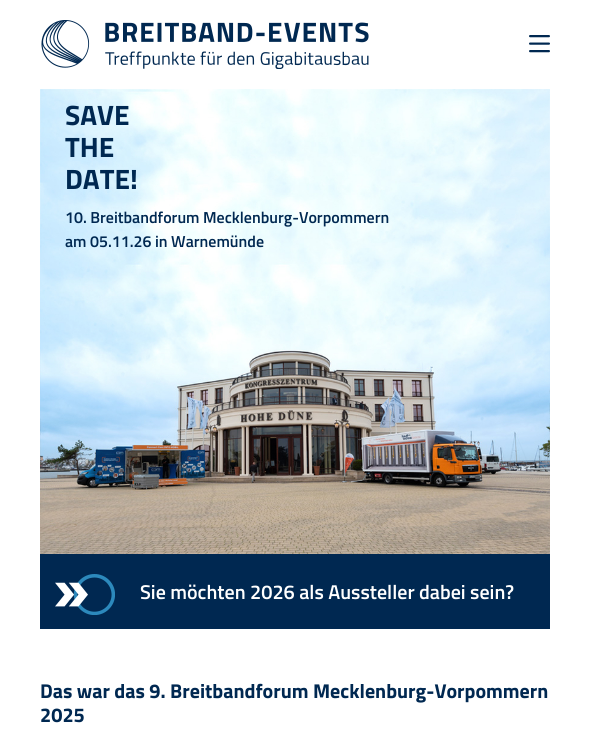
import math
import cairo



def draw_image(context, path, x, y, w, h):
    context.save()
    context.set_source_surface(cairo.ImageSurface.create_from_png(path), x, y)
    context.rectangle(x, y, w, h)
    context.fill()
    context.restore()


def draw(context):
    context.set_source_rgb(1, 1, 1)
    context.paint()
    draw_image(context, "images/1.png", 41, 20, 328, 49)
    draw_image(context, "images/2.png", 529, 35, 21, 18)
    draw_image(context, "images/3.png", 40, 89, 510, 465)
    context.set_source_rgb(0, 40 / 255, 81 / 255)
    context.rectangle(40, 554, 510, 75)
    context.fill()
    draw_image(context, "images/4.png", 55, 574, 60, 41)
    context.select_font_face("Titillium Web", cairo.FontSlant.NORMAL, cairo.FontWeight.BOLD)
    context.set_font_size(28)
    context.move_to(65, 125)
    context.show_text("SAVE")
    context.move_to(65, 157)
    context.show_text("THE")
    context.move_to(65, 189)
    context.show_text("DATE!")
    context.select_font_face("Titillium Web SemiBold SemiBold")
    context.set_font_size(16)
    context.move_to(65, 223)
    context.show_text("10. Breitbandforum Mecklenburg-Vorpommern")
    context.move_to(65, 247)
    context.show_text("am 05.11.26 in Warnemünde")
    context.set_font_size(20)
    context.set_source_rgb(1, 1, 1)
    context.move_to(140, 599)
    context.show_text("Sie möchten 2026 als Aussteller dabei sein?")
    context.select_font_face("Titillium Web", cairo.FontSlant.NORMAL, cairo.FontWeight.BOLD)
    context.set_source_rgb(0, 40 / 255, 81 / 255)
    context.move_to(40, 698)
    context.show_text("Das war das 9. Breitbandforum Mecklenburg-Vorpommern")
    context.move_to(40, 722)
    context.show_text("2025")


surface = cairo.ImageSurface(cairo.Format.RGB24, 590, 731)
context = cairo.Context(surface)
options = cairo.FontOptions()
options.set_hint_metrics(cairo.HintMetrics.OFF)
options.set_hint_style(cairo.HintStyle.NONE)
context.set_font_options(options)
context.set_miter_limit(4)
draw(context)
surface.write_to_png("out.png")
